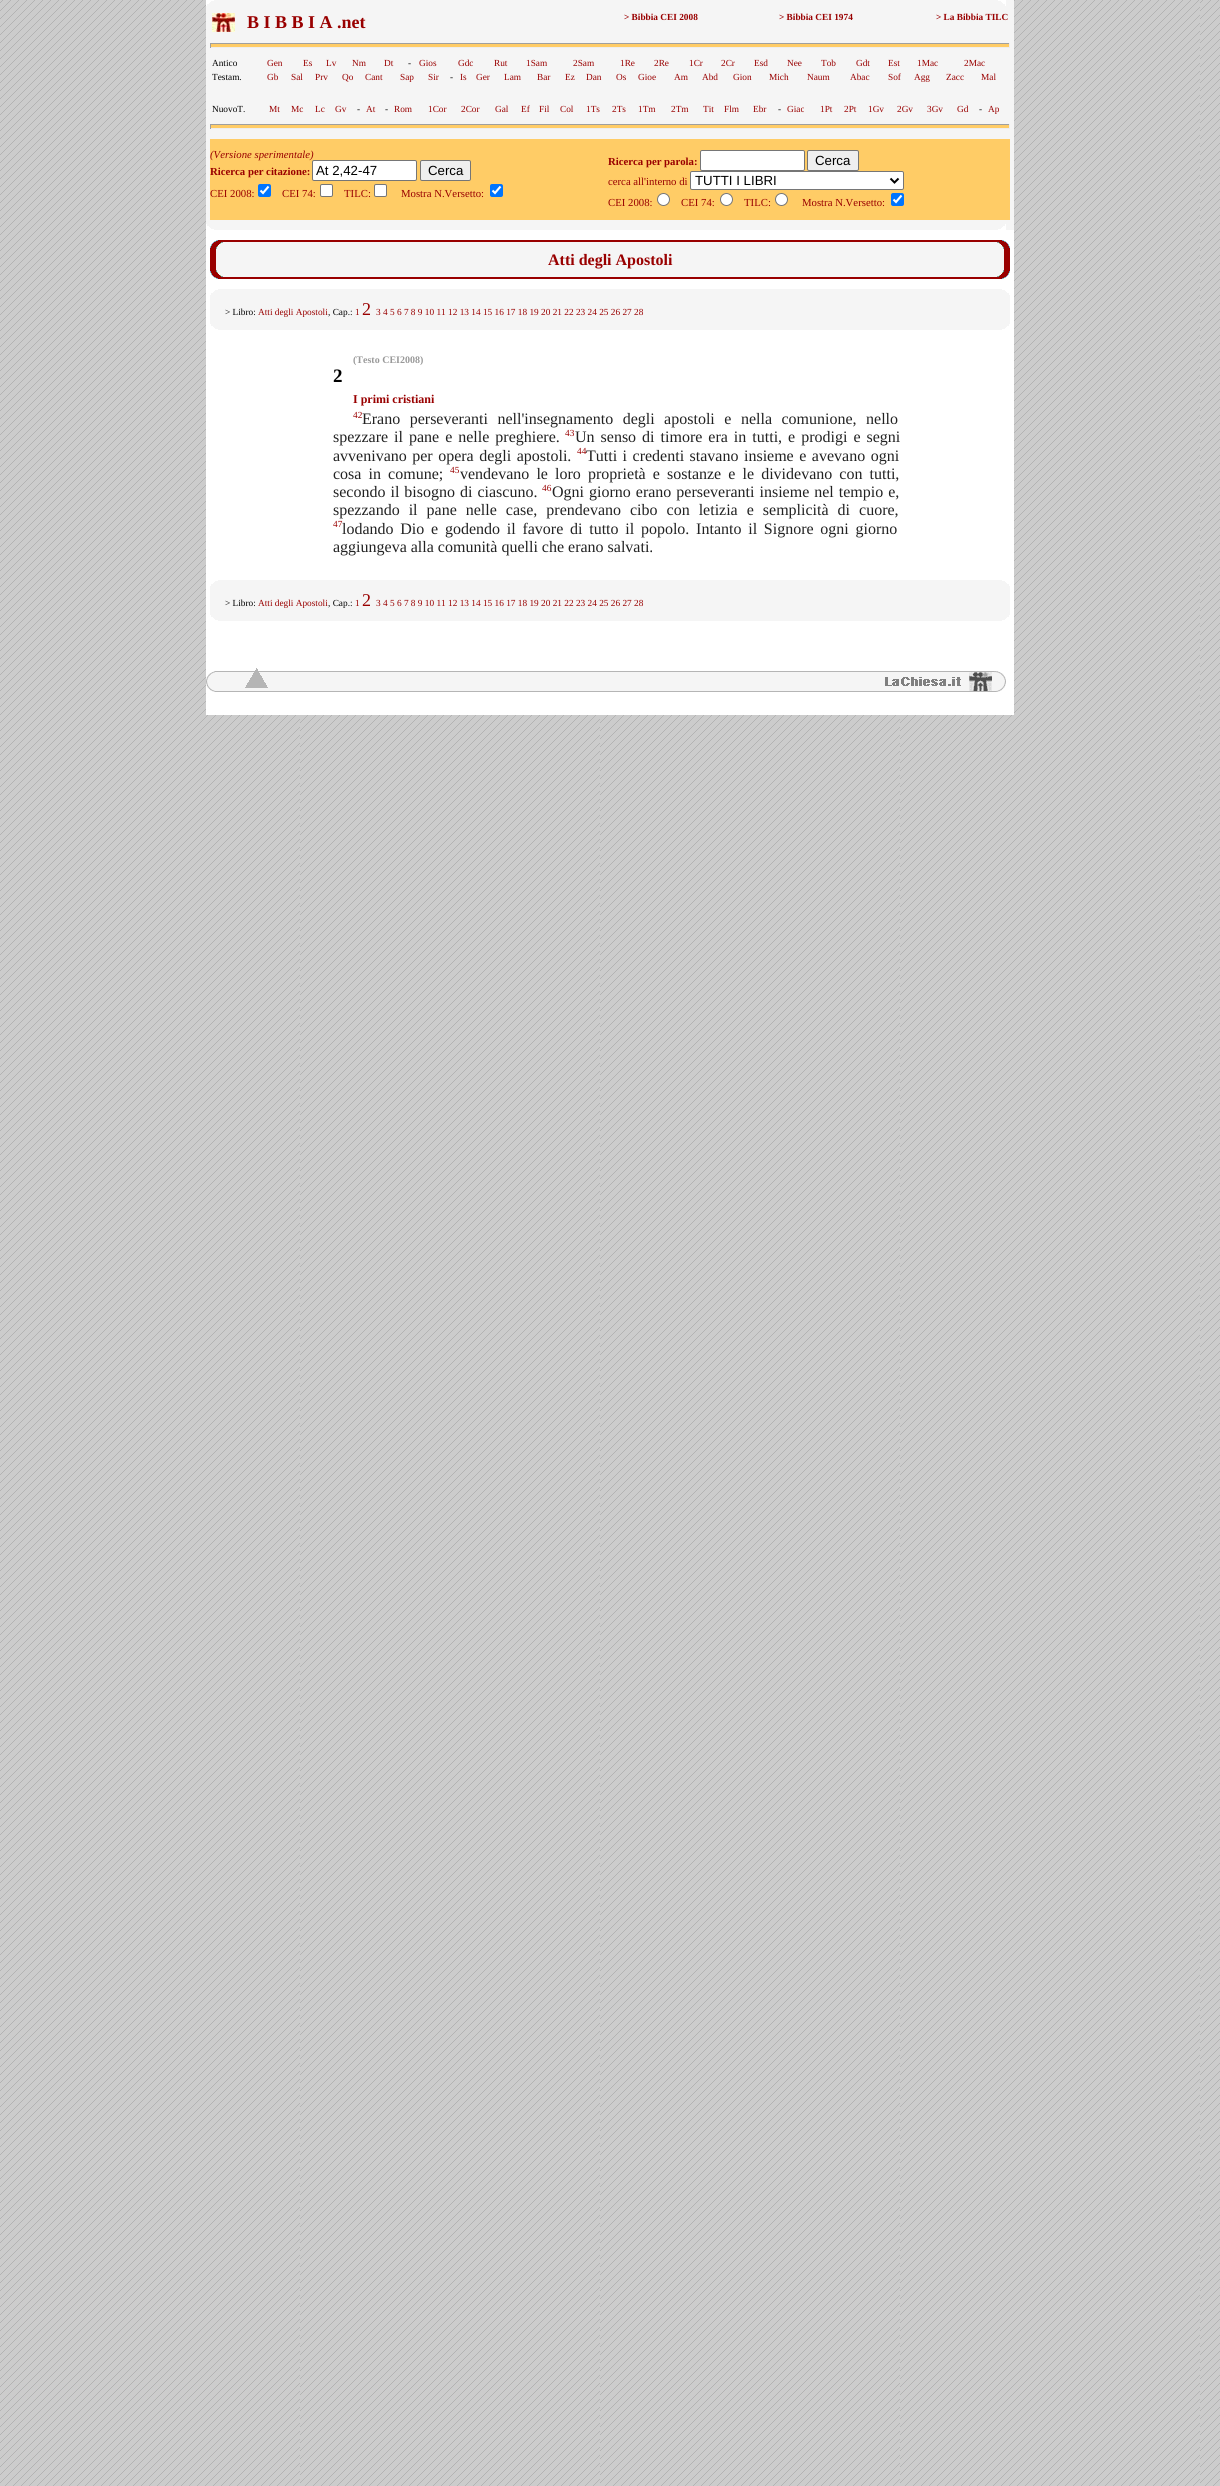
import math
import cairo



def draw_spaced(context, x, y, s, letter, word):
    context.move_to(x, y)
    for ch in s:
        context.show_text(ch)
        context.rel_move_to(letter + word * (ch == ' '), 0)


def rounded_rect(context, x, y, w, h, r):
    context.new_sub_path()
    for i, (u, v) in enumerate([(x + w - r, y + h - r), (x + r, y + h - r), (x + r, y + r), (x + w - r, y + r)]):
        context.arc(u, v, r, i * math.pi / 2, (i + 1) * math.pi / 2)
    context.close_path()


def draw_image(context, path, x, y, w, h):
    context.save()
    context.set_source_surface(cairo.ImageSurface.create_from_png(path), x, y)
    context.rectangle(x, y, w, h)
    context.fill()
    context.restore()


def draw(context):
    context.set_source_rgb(1, 1, 1)
    context.paint()
    draw_image(context, "images/1.png", 0, 0, 1220, 2486)
    context.set_source_rgb(1, 1, 1)
    context.rectangle(206, 230, 808, 485)
    context.fill()
    context.set_source_rgb(245 / 255, 245 / 255, 245 / 255)
    context.rectangle(206, 0, 808, 230)
    context.fill()
    draw_image(context, "images/2.png", 206, 0, 800, 6)
    draw_image(context, "images/3.png", 212, 13, 23, 19)
    context.set_source_rgb(1, 204 / 255, 102 / 255)
    context.rectangle(210, 44, 800, 3)
    context.fill()
    context.set_source_rgb(159 / 255, 159 / 255, 159 / 255)
    context.rectangle(210, 43, 800, 1)
    context.fill()
    context.set_source_rgb(238 / 255, 238 / 255, 238 / 255)
    context.rectangle(1009, 43, 1, 5)
    context.fill()
    context.rectangle(210, 47, 800, 1)
    context.fill()
    context.set_source_rgb(159 / 255, 159 / 255, 159 / 255)
    context.rectangle(210, 43, 1, 5)
    context.fill()
    context.set_source_rgb(1, 204 / 255, 102 / 255)
    context.rectangle(210, 125, 800, 3)
    context.fill()
    context.set_source_rgb(159 / 255, 159 / 255, 159 / 255)
    context.rectangle(210, 124, 800, 1)
    context.fill()
    context.set_source_rgb(238 / 255, 238 / 255, 238 / 255)
    context.rectangle(1009, 124, 1, 5)
    context.fill()
    context.rectangle(210, 128, 800, 1)
    context.fill()
    context.set_source_rgb(159 / 255, 159 / 255, 159 / 255)
    context.rectangle(210, 124, 1, 5)
    context.fill()
    context.set_source_rgb(1, 204 / 255, 102 / 255)
    context.rectangle(210, 139, 800, 81)
    context.fill()
    context.set_source_rgb(239 / 255, 239 / 255, 239 / 255)
    rounded_rect(context, 420.5, 160.5, 50, 20, 1.5)
    context.fill_preserve()
    context.set_source_rgb(118 / 255, 118 / 255, 118 / 255)
    context.set_line_width(1)
    context.stroke()
    context.set_source_rgb(0, 117 / 255, 1)
    rounded_rect(context, 258, 184, 13, 13, 2)
    context.fill()
    context.new_path()
    context.move_to(260.5, 190.5)
    context.line_to(263, 193)
    context.line_to(268.5, 186.5)
    context.set_source_rgb(1, 1, 1)
    context.set_line_width(2.1)
    context.stroke()
    rounded_rect(context, 320.5, 184.5, 12, 12, 1.5)
    context.fill_preserve()
    context.set_source_rgb(118 / 255, 118 / 255, 118 / 255)
    context.set_line_width(1)
    context.stroke()
    context.set_source_rgb(1, 1, 1)
    rounded_rect(context, 374.5, 184.5, 12, 12, 1.5)
    context.fill_preserve()
    context.set_source_rgb(118 / 255, 118 / 255, 118 / 255)
    context.stroke()
    context.set_source_rgb(0, 117 / 255, 1)
    rounded_rect(context, 490, 184, 13, 13, 2)
    context.fill()
    context.new_path()
    context.move_to(492.5, 190.5)
    context.line_to(495, 193)
    context.line_to(500.5, 186.5)
    context.set_source_rgb(1, 1, 1)
    context.set_line_width(2.1)
    context.stroke()
    rounded_rect(context, 700.5, 150.5, 104, 20, 1.5)
    context.fill_preserve()
    context.set_source_rgb(118 / 255, 118 / 255, 118 / 255)
    context.set_line_width(1)
    context.stroke()
    context.set_source_rgb(239 / 255, 239 / 255, 239 / 255)
    rounded_rect(context, 807.5, 150.5, 51, 20, 1.5)
    context.fill_preserve()
    context.set_source_rgb(118 / 255, 118 / 255, 118 / 255)
    context.stroke()
    context.set_source_rgb(1, 1, 1)
    rounded_rect(context, 690.5, 171.5, 213, 18, 1.5)
    context.fill_preserve()
    context.set_source_rgb(118 / 255, 118 / 255, 118 / 255)
    context.stroke()
    context.new_path()
    context.move_to(890.5, 178.5)
    context.line_to(894.5, 182.5)
    context.line_to(898.5, 178.5)
    context.set_source_rgb(0, 0, 0)
    context.set_line_width(2)
    context.stroke()
    context.set_source_rgb(1, 1, 1)
    context.arc(663.5, 199.5, 6, 0, 2 * math.pi)
    context.fill_preserve()
    context.set_source_rgb(118 / 255, 118 / 255, 118 / 255)
    context.set_line_width(1)
    context.stroke()
    context.set_source_rgb(1, 1, 1)
    context.arc(726.5, 199.5, 6, 0, 2 * math.pi)
    context.fill_preserve()
    context.set_source_rgb(118 / 255, 118 / 255, 118 / 255)
    context.stroke()
    context.set_source_rgb(1, 1, 1)
    context.arc(781.5, 199.5, 6, 0, 2 * math.pi)
    context.fill_preserve()
    context.set_source_rgb(118 / 255, 118 / 255, 118 / 255)
    context.stroke()
    context.set_source_rgb(0, 117 / 255, 1)
    rounded_rect(context, 891, 193, 13, 13, 2)
    context.fill()
    context.new_path()
    context.move_to(893.5, 199.5)
    context.line_to(896, 202)
    context.line_to(901.5, 195.5)
    context.set_source_rgb(1, 1, 1)
    context.set_line_width(2.1)
    context.stroke()
    draw_image(context, "images/4.png", 206, 224, 800, 6)
    context.set_source_rgb(245 / 255, 245 / 255, 245 / 255)
    context.rectangle(216, 250, 788, 19)
    context.fill()
    draw_image(context, "images/5.png", 210, 240, 800, 10)
    context.set_source_rgb(153 / 255, 0, 0)
    context.rectangle(210, 250, 6, 19)
    context.fill()
    context.rectangle(1004, 250, 6, 19)
    context.fill()
    draw_image(context, "images/6.png", 210, 269, 800, 10)
    context.set_source_rgb(245 / 255, 245 / 255, 245 / 255)
    context.rectangle(210, 295, 800, 29)
    context.fill()
    draw_image(context, "images/2.png", 210, 289, 800, 6)
    draw_image(context, "images/4.png", 210, 324, 800, 6)
    context.rectangle(210, 586, 800, 29)
    context.fill()
    draw_image(context, "images/2.png", 210, 580, 800, 6)
    draw_image(context, "images/4.png", 210, 615, 800, 6)
    draw_image(context, "images/7.png", 206, 668, 800, 24)
    context.select_font_face("Liberation Serif", cairo.FontSlant.NORMAL, cairo.FontWeight.BOLD)
    context.set_font_size(18)
    context.set_source_rgb(153 / 255, 0, 0)
    context.move_to(247, 28)
    context.show_text("B I B B I A .net")
    context.set_font_size(9.3)
    context.move_to(624, 20)
    context.show_text("> Bibbia CEI 2008")
    context.move_to(779, 20)
    context.show_text("> Bibbia CEI 1974")
    context.move_to(936, 20)
    context.show_text("> La Bibbia TILC")
    context.select_font_face("Liberation Serif")
    context.set_source_rgb(0, 0, 0)
    context.move_to(212, 66)
    context.show_text("Antico")
    context.set_source_rgb(153 / 255, 0, 0)
    context.move_to(267, 66)
    context.show_text("Gen")
    context.move_to(303, 66)
    context.show_text("Es")
    context.move_to(326, 66)
    context.show_text("Lv")
    context.move_to(352, 66)
    context.show_text("Nm")
    context.move_to(384, 66)
    context.show_text("Dt")
    context.set_source_rgb(0, 0, 0)
    context.move_to(408, 66)
    context.show_text("-")
    context.set_source_rgb(153 / 255, 0, 0)
    context.move_to(419, 66)
    context.show_text("Gios")
    context.move_to(458, 66)
    context.show_text("Gdc")
    context.move_to(494, 66)
    context.show_text("Rut")
    context.move_to(526, 66)
    context.show_text("1Sam")
    context.move_to(573, 66)
    context.show_text("2Sam")
    context.move_to(620, 66)
    context.show_text("1Re")
    context.move_to(654, 66)
    context.show_text("2Re")
    context.move_to(689, 66)
    context.show_text("1Cr")
    context.move_to(721, 66)
    context.show_text("2Cr")
    context.move_to(754, 66)
    context.show_text("Esd")
    context.move_to(787, 66)
    context.show_text("Nee")
    context.move_to(821, 66)
    context.show_text("Tob")
    context.move_to(856, 66)
    context.show_text("Gdt")
    context.move_to(888, 66)
    context.show_text("Est")
    context.move_to(917, 66)
    context.show_text("1Mac")
    context.move_to(964, 66)
    context.show_text("2Mac")
    context.set_source_rgb(0, 0, 0)
    context.move_to(212, 80)
    context.show_text("Testam.")
    context.set_source_rgb(153 / 255, 0, 0)
    context.move_to(267, 80)
    context.show_text("Gb")
    context.move_to(291, 80)
    context.show_text("Sal")
    context.move_to(315, 80)
    context.show_text("Prv")
    context.move_to(342, 80)
    context.show_text("Qo")
    context.move_to(365, 80)
    context.show_text("Cant")
    context.move_to(400, 80)
    context.show_text("Sap")
    context.move_to(428, 80)
    context.show_text("Sir")
    context.set_source_rgb(0, 0, 0)
    context.move_to(450, 80)
    context.show_text("-")
    context.set_source_rgb(153 / 255, 0, 0)
    context.move_to(460, 80)
    context.show_text("Is")
    context.move_to(476, 80)
    context.show_text("Ger")
    context.move_to(504, 80)
    context.show_text("Lam")
    context.move_to(537, 80)
    context.show_text("Bar")
    context.move_to(565, 80)
    context.show_text("Ez")
    context.move_to(586, 80)
    context.show_text("Dan")
    context.move_to(616, 80)
    context.show_text("Os")
    context.move_to(638, 80)
    context.show_text("Gioe")
    context.move_to(674, 80)
    context.show_text("Am")
    context.move_to(702, 80)
    context.show_text("Abd")
    context.move_to(733, 80)
    context.show_text("Gion")
    context.move_to(769, 80)
    context.show_text("Mich")
    context.move_to(807, 80)
    context.show_text("Naum")
    context.move_to(850, 80)
    context.show_text("Abac")
    context.move_to(888, 80)
    context.show_text("Sof")
    context.move_to(914, 80)
    context.show_text("Agg")
    context.move_to(946, 80)
    context.show_text("Zacc")
    context.move_to(981, 80)
    context.show_text("Mal")
    context.set_source_rgb(0, 0, 0)
    context.move_to(212, 112)
    context.show_text("NuovoT.")
    context.set_source_rgb(153 / 255, 0, 0)
    context.move_to(269, 112)
    context.show_text("Mt")
    context.move_to(291, 112)
    context.show_text("Mc")
    context.move_to(315, 112)
    context.show_text("Lc")
    context.move_to(335, 112)
    context.show_text("Gv")
    context.set_source_rgb(0, 0, 0)
    context.move_to(357, 112)
    context.show_text("-")
    context.set_source_rgb(153 / 255, 0, 0)
    context.move_to(366, 112)
    context.show_text("At")
    context.set_source_rgb(0, 0, 0)
    context.move_to(385, 112)
    context.show_text("-")
    context.set_source_rgb(153 / 255, 0, 0)
    context.move_to(394, 112)
    context.show_text("Rom")
    context.move_to(428, 112)
    context.show_text("1Cor")
    context.move_to(461, 112)
    context.show_text("2Cor")
    context.move_to(495, 112)
    context.show_text("Gal")
    context.move_to(521, 112)
    context.show_text("Ef")
    context.move_to(539, 112)
    context.show_text("Fil")
    context.move_to(560, 112)
    context.show_text("Col")
    context.move_to(586, 112)
    context.show_text("1Ts")
    context.move_to(612, 112)
    context.show_text("2Ts")
    context.move_to(638, 112)
    context.show_text("1Tm")
    context.move_to(671, 112)
    context.show_text("2Tm")
    context.move_to(703, 112)
    context.show_text("Tit")
    context.move_to(724, 112)
    context.show_text("Flm")
    context.move_to(753, 112)
    context.show_text("Ebr")
    context.set_source_rgb(0, 0, 0)
    context.move_to(778, 112)
    context.show_text("-")
    context.set_source_rgb(153 / 255, 0, 0)
    context.move_to(787, 112)
    context.show_text("Giac")
    context.move_to(820, 112)
    context.show_text("1Pt")
    context.move_to(844, 112)
    context.show_text("2Pt")
    context.move_to(868, 112)
    context.show_text("1Gv")
    context.move_to(897, 112)
    context.show_text("2Gv")
    context.move_to(927, 112)
    context.show_text("3Gv")
    context.move_to(957, 112)
    context.show_text("Gd")
    context.set_source_rgb(0, 0, 0)
    context.move_to(979, 112)
    context.show_text("-")
    context.set_source_rgb(153 / 255, 0, 0)
    context.move_to(988, 112)
    context.show_text("Ap")
    context.select_font_face("Liberation Serif", cairo.FontSlant.ITALIC)
    context.set_font_size(10.75)
    context.move_to(210, 158)
    context.show_text("(Versione sperimentale)")
    context.select_font_face("Liberation Serif", cairo.FontSlant.NORMAL, cairo.FontWeight.BOLD)
    context.move_to(210, 175)
    context.show_text("Ricerca per citazione:")
    context.set_source_rgb(1, 1, 1)
    rounded_rect(context, 312.5, 160.5, 104, 20, 1.5)
    context.fill_preserve()
    context.set_source_rgb(118 / 255, 118 / 255, 118 / 255)
    context.set_line_width(1)
    context.stroke()
    context.select_font_face("Liberation Sans")
    context.set_font_size(13.25)
    context.set_source_rgb(0, 0, 0)
    context.move_to(316, 175)
    context.show_text("At 2,42-47")
    context.move_to(428, 175)
    context.show_text("Cerca")
    context.select_font_face("Liberation Serif")
    context.set_font_size(10.75)
    context.set_source_rgb(153 / 255, 0, 0)
    context.move_to(210, 197)
    context.show_text("CEI 2008:")
    context.move_to(282, 197)
    context.show_text("CEI 74:")
    context.move_to(344, 197)
    context.show_text("TILC:")
    context.move_to(401, 197)
    context.show_text("Mostra N.Versetto:")
    context.select_font_face("Liberation Serif", cairo.FontSlant.NORMAL, cairo.FontWeight.BOLD)
    context.move_to(608, 165)
    context.show_text("Ricerca per parola:")
    context.select_font_face("Liberation Sans")
    context.set_font_size(13.25)
    context.set_source_rgb(0, 0, 0)
    context.move_to(815, 165)
    context.show_text("Cerca")
    context.select_font_face("Liberation Serif")
    context.set_font_size(10.75)
    context.set_source_rgb(153 / 255, 0, 0)
    context.move_to(608, 185)
    context.show_text("cerca all'interno di")
    context.select_font_face("Liberation Sans")
    context.set_font_size(13.25)
    context.set_source_rgb(0, 0, 0)
    context.move_to(695, 185)
    context.show_text("TUTTI I LIBRI")
    context.select_font_face("Liberation Serif")
    context.set_font_size(10.75)
    context.set_source_rgb(153 / 255, 0, 0)
    context.move_to(608, 206)
    context.show_text("CEI 2008:")
    context.move_to(681, 206)
    context.show_text("CEI 74:")
    context.move_to(744, 206)
    context.show_text("TILC:")
    context.move_to(802, 206)
    context.show_text("Mostra N.Versetto:")
    context.select_font_face("Liberation Serif", cairo.FontSlant.NORMAL, cairo.FontWeight.BOLD)
    context.set_font_size(16)
    context.move_to(548, 265)
    context.show_text("Atti degli Apostoli")
    context.select_font_face("Liberation Serif")
    context.set_font_size(9.3)
    context.set_source_rgb(0, 0, 0)
    context.move_to(225, 315)
    context.show_text("> Libro:")
    context.set_source_rgb(153 / 255, 0, 0)
    context.move_to(258, 315)
    context.show_text("Atti degli Apostoli")
    context.set_source_rgb(0, 0, 0)
    context.move_to(328, 315)
    context.show_text(", Cap.:")
    context.set_source_rgb(153 / 255, 0, 0)
    context.move_to(355, 315)
    context.show_text("1")
    context.set_font_size(18)
    context.move_to(362, 315)
    context.show_text("2")
    context.set_font_size(9.3)
    context.move_to(376, 315)
    context.show_text("3 4 5 6 7 8 9 10 11 12 13 14 15 16 17 18 19 20 21 22 23 24 25 26 27 28")
    context.select_font_face("Liberation Serif", cairo.FontSlant.NORMAL, cairo.FontWeight.BOLD)
    context.set_font_size(10)
    context.set_source_rgb(153 / 255, 153 / 255, 153 / 255)
    context.move_to(353, 363)
    context.show_text("(Testo CEI2008)")
    context.set_font_size(19)
    context.set_source_rgb(0, 0, 0)
    context.move_to(333, 382)
    context.show_text("2")
    context.set_font_size(12)
    context.set_source_rgb(153 / 255, 0, 0)
    context.move_to(353, 403)
    context.show_text("I primi cristiani")
    context.select_font_face("Liberation Serif")
    context.set_font_size(9.3)
    context.move_to(353, 418)
    context.show_text("42")
    context.set_font_size(16)
    context.set_source_rgb(34 / 255, 34 / 255, 34 / 255)
    draw_spaced(context, 362, 424, "Erano perseveranti nell'insegnamento degli apostoli e nella comunione, nello", 0, 5.5)
    draw_spaced(context, 333, 442, "spezzare il pane e nelle preghiere.", 0, 2)
    context.set_font_size(9.3)
    context.set_source_rgb(153 / 255, 0, 0)
    context.move_to(565, 436)
    context.show_text("43")
    context.set_font_size(16)
    context.set_source_rgb(34 / 255, 34 / 255, 34 / 255)
    draw_spaced(context, 575, 442, "Un senso di timore era in tutti, e prodigi e segni", 0, 2)
    draw_spaced(context, 333, 461, "avvenivano per opera degli apostoli.", 0, 1.5)
    context.set_font_size(9.3)
    context.set_source_rgb(153 / 255, 0, 0)
    context.move_to(577, 454)
    context.show_text("44")
    context.set_font_size(16)
    context.set_source_rgb(34 / 255, 34 / 255, 34 / 255)
    draw_spaced(context, 586, 461, "Tutti i credenti stavano insieme e avevano ogni", 0, 1.5)
    draw_spaced(context, 333, 479, "cosa in comune;", 0, 3.1)
    context.set_font_size(9.3)
    context.set_source_rgb(153 / 255, 0, 0)
    context.move_to(450, 473)
    context.show_text("45")
    context.set_font_size(16)
    context.set_source_rgb(34 / 255, 34 / 255, 34 / 255)
    draw_spaced(context, 460, 479, "vendevano le loro proprietà e sostanze e le dividevano con tutti,", 0, 3.1)
    draw_spaced(context, 333, 497, "secondo il bisogno di ciascuno.", 0, 1)
    context.set_font_size(9.3)
    context.set_source_rgb(153 / 255, 0, 0)
    context.move_to(542, 491)
    context.show_text("46")
    context.set_font_size(16)
    context.set_source_rgb(34 / 255, 34 / 255, 34 / 255)
    draw_spaced(context, 552, 497, "Ogni giorno erano perseveranti insieme nel tempio e,", 0, 1)
    draw_spaced(context, 333, 515, "spezzando il pane nelle case, prendevano cibo con letizia e semplicità di cuore,", 0, 5)
    context.set_font_size(9.3)
    context.set_source_rgb(153 / 255, 0, 0)
    context.move_to(333, 527)
    context.show_text("47")
    context.set_font_size(16)
    context.set_source_rgb(34 / 255, 34 / 255, 34 / 255)
    draw_spaced(context, 342, 534, "lodando Dio e godendo il favore di tutto il popolo. Intanto il Signore ogni giorno", 0, 2.75)
    context.move_to(333, 552)
    context.show_text("aggiungeva alla comunità quelli che erano salvati.")
    context.set_font_size(9.3)
    context.set_source_rgb(0, 0, 0)
    context.move_to(225, 606)
    context.show_text("> Libro:")
    context.set_source_rgb(153 / 255, 0, 0)
    context.move_to(258, 606)
    context.show_text("Atti degli Apostoli")
    context.set_source_rgb(0, 0, 0)
    context.move_to(328, 606)
    context.show_text(", Cap.:")
    context.set_source_rgb(153 / 255, 0, 0)
    context.move_to(355, 606)
    context.show_text("1")
    context.set_font_size(18)
    context.move_to(362, 606)
    context.show_text("2")
    context.set_font_size(9.3)
    context.move_to(376, 606)
    context.show_text("3 4 5 6 7 8 9 10 11 12 13 14 15 16 17 18 19 20 21 22 23 24 25 26 27 28")


surface = cairo.ImageSurface(cairo.Format.RGB24, 1220, 2486)
context = cairo.Context(surface)
options = cairo.FontOptions()
options.set_hint_metrics(cairo.HintMetrics.OFF)
options.set_hint_style(cairo.HintStyle.NONE)
context.set_font_options(options)
context.set_miter_limit(4)
draw(context)
surface.write_to_png("out.png")
